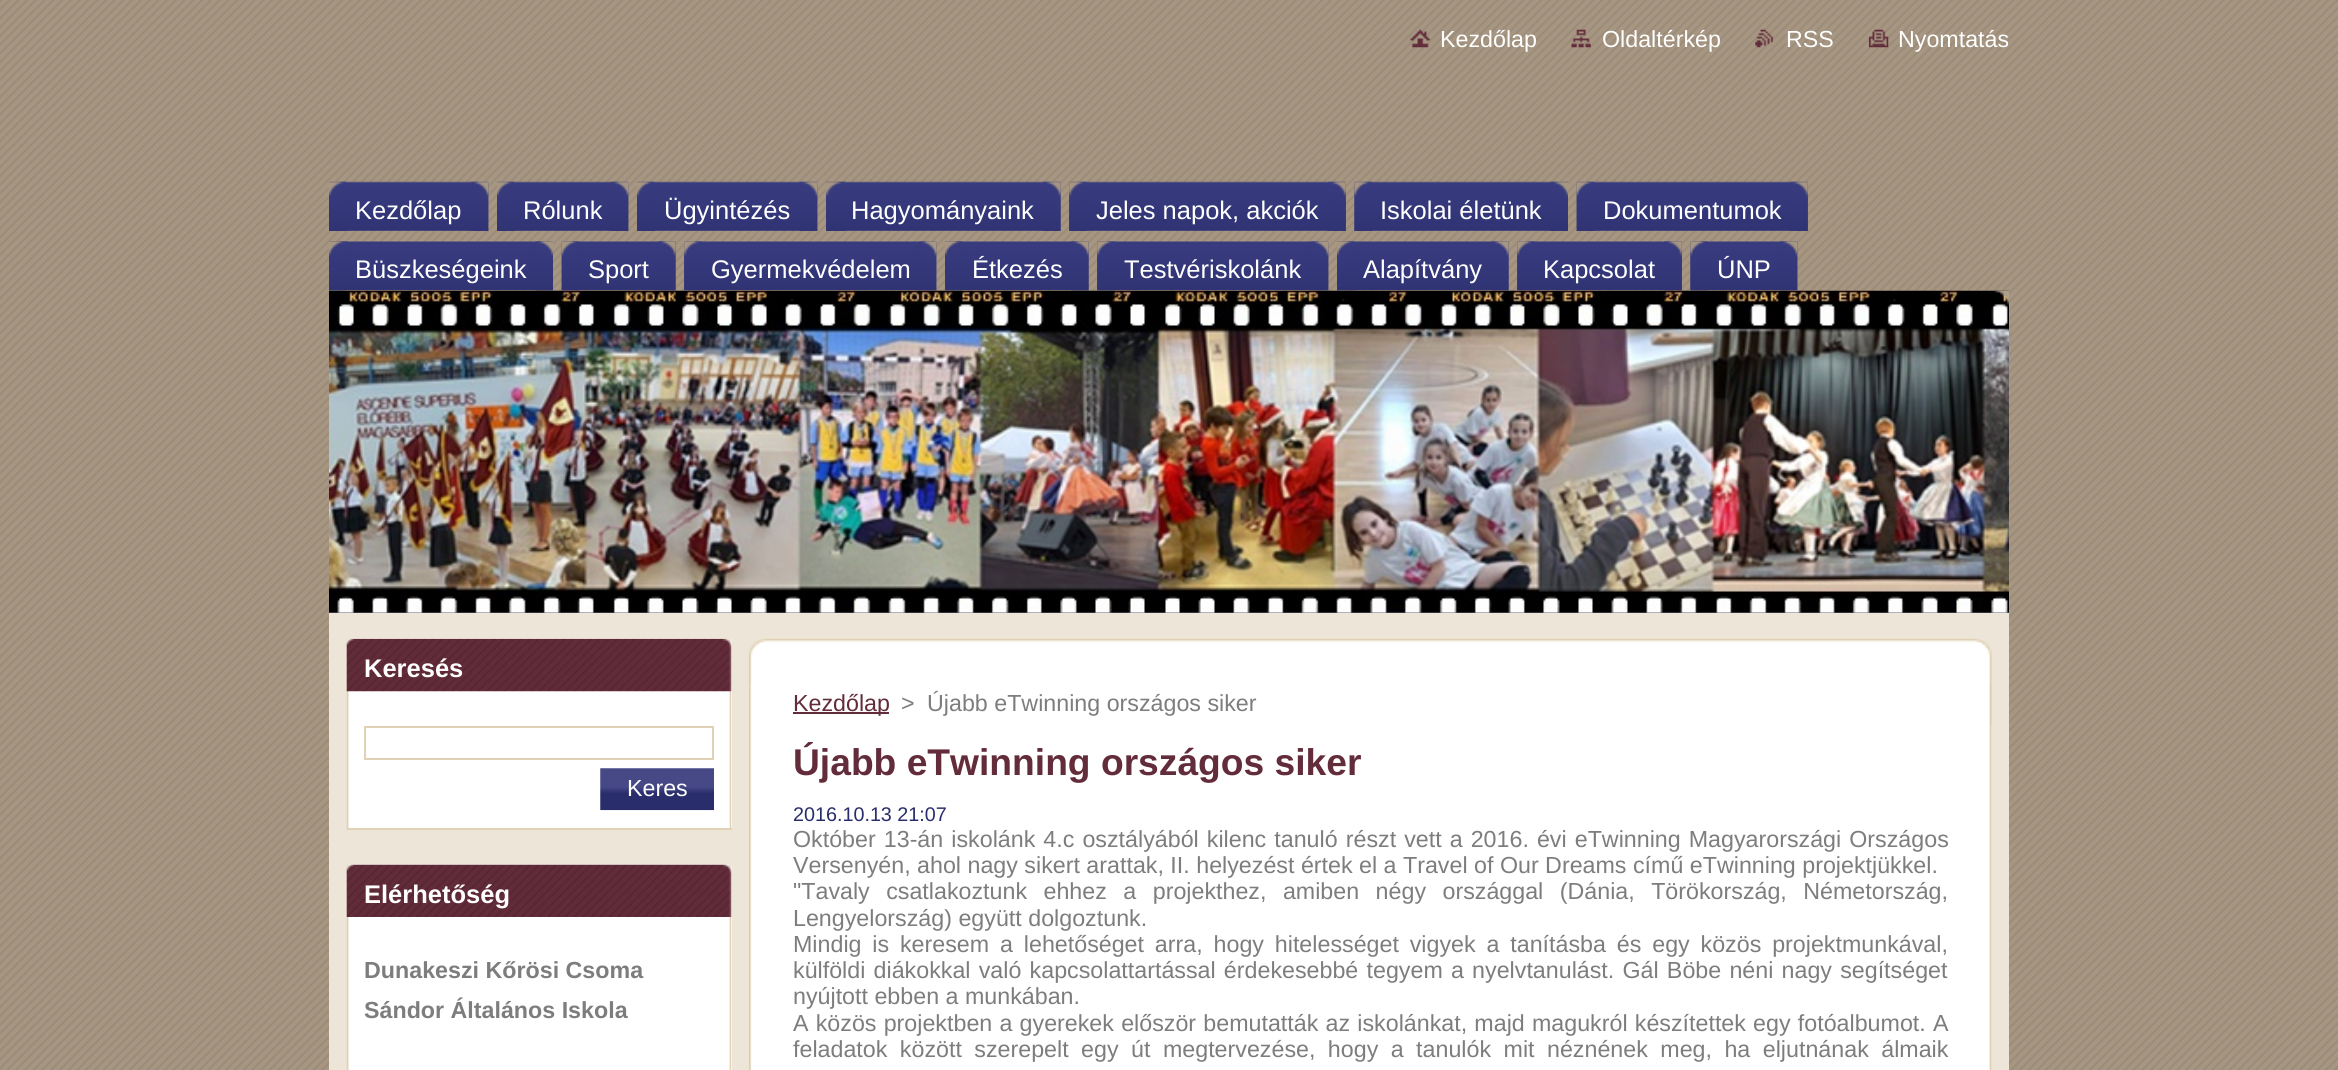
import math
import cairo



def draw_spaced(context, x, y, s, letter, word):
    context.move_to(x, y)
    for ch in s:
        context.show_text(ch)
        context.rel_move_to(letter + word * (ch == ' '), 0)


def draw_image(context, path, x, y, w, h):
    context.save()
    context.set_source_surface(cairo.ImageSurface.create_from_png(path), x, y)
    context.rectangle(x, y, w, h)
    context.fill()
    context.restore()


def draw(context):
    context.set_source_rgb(1, 1, 1)
    context.paint()
    draw_image(context, "images/1.png", 0, 0, 2338, 1070)
    draw_image(context, "images/2.png", 1410, 29, 20, 19)
    draw_image(context, "images/3.png", 1571, 29, 20, 19)
    draw_image(context, "images/4.png", 1755, 29, 18, 19)
    draw_image(context, "images/5.png", 1869, 29, 20, 19)
    draw_image(context, "images/6.png", 329, 181, 160, 50)
    draw_image(context, "images/7.png", 329, 181, 18, 50)
    draw_image(context, "images/8.png", 470, 181, 19, 50)
    draw_image(context, "images/9.png", 497, 181, 132, 50)
    draw_image(context, "images/10.png", 497, 181, 18, 50)
    draw_image(context, "images/8.png", 610, 181, 19, 50)
    draw_image(context, "images/11.png", 637, 181, 181, 50)
    draw_image(context, "images/12.png", 637, 181, 18, 50)
    draw_image(context, "images/13.png", 799, 181, 19, 50)
    draw_image(context, "images/14.png", 826, 181, 235, 50)
    draw_image(context, "images/15.png", 826, 181, 20, 50)
    draw_image(context, "images/16.png", 1043, 181, 18, 50)
    draw_image(context, "images/17.png", 1069, 181, 277, 50)
    draw_image(context, "images/18.png", 1069, 181, 18, 50)
    draw_image(context, "images/19.png", 1328, 181, 18, 50)
    draw_image(context, "images/20.png", 1354, 181, 214, 50)
    draw_image(context, "images/21.png", 1354, 181, 18, 50)
    draw_image(context, "images/22.png", 1550, 181, 18, 50)
    draw_image(context, "images/23.png", 1576, 181, 232, 50)
    draw_image(context, "images/24.png", 1576, 181, 19, 50)
    draw_image(context, "images/25.png", 1790, 181, 18, 50)
    draw_image(context, "images/26.png", 329, 241, 224, 50)
    draw_image(context, "images/27.png", 329, 241, 18, 50)
    draw_image(context, "images/28.png", 535, 241, 18, 50)
    draw_image(context, "images/29.png", 561, 241, 115, 50)
    draw_image(context, "images/30.png", 561, 241, 19, 50)
    draw_image(context, "images/31.png", 658, 241, 18, 50)
    draw_image(context, "images/32.png", 684, 241, 253, 50)
    draw_image(context, "images/33.png", 684, 241, 18, 50)
    draw_image(context, "images/34.png", 918, 241, 19, 50)
    draw_image(context, "images/35.png", 945, 241, 144, 50)
    draw_image(context, "images/36.png", 945, 241, 18, 50)
    draw_image(context, "images/37.png", 1071, 241, 18, 50)
    draw_image(context, "images/38.png", 1097, 241, 232, 50)
    draw_image(context, "images/39.png", 1097, 241, 18, 50)
    draw_image(context, "images/40.png", 1310, 241, 19, 50)
    draw_image(context, "images/41.png", 1337, 241, 172, 50)
    draw_image(context, "images/42.png", 1337, 241, 18, 50)
    draw_image(context, "images/37.png", 1491, 241, 18, 50)
    draw_image(context, "images/43.png", 1517, 241, 165, 50)
    draw_image(context, "images/44.png", 1517, 241, 18, 50)
    draw_image(context, "images/45.png", 1664, 241, 18, 50)
    draw_image(context, "images/46.png", 1690, 241, 108, 50)
    draw_image(context, "images/47.png", 1690, 241, 18, 50)
    draw_image(context, "images/48.png", 1779, 241, 19, 50)
    context.set_source_rgb(99 / 255, 100 / 255, 121 / 255)
    context.rectangle(329, 612, 1680, 1)
    context.fill()
    draw_image(context, "images/49.png", 329, 290, 1680, 323)
    draw_image(context, "images/50.png", 1994, 290, 15, 16)
    context.set_source_rgb(237 / 255, 229 / 255, 216 / 255)
    context.rectangle(329, 613, 1680, 457)
    context.fill()
    context.set_source_rgb(1, 1, 1)
    context.rectangle(731, 639, 1, 189)
    context.fill()
    draw_image(context, "images/51.png", 346, 639, 386, 191)
    context.set_source_rgb(225 / 255, 209 / 255, 181 / 255)
    context.rectangle(347, 828, 385, 2)
    context.fill()
    draw_image(context, "images/52.png", 346, 638, 386, 54)
    context.rectangle(365, 727, 348, 32)
    context.stroke()
    draw_image(context, "images/53.png", 600, 768, 114, 43)
    context.set_source_rgb(1, 1, 1)
    context.rectangle(731, 865, 1, 205)
    context.fill()
    draw_image(context, "images/54.png", 346, 864, 386, 206)
    draw_image(context, "images/55.png", 346, 864, 386, 53)
    draw_image(context, "images/56.png", 749, 638, 1243, 89)
    draw_image(context, "images/57.png", 749, 683, 1243, 387)
    context.set_source_rgb(99 / 255, 44 / 255, 59 / 255)
    context.rectangle(793, 712, 96, 2)
    context.fill()
    context.select_font_face("Liberation Sans")
    context.set_font_size(23.25)
    context.set_source_rgb(1, 1, 1)
    context.move_to(1440, 47)
    context.show_text("Kezdőlap")
    context.move_to(1602, 47)
    context.show_text("Oldaltérkép")
    context.move_to(1786, 47)
    context.show_text("RSS")
    context.move_to(1898, 47)
    context.show_text("Nyomtatás")
    context.set_font_size(25.5)
    context.move_to(355, 219)
    context.show_text("Kezdőlap")
    context.move_to(523, 219)
    context.show_text("Rólunk")
    context.move_to(664, 219)
    context.show_text("Ügyintézés")
    context.move_to(851, 219)
    context.show_text("Hagyományaink")
    context.move_to(1096, 219)
    context.show_text("Jeles napok, akciók")
    context.move_to(1380, 219)
    context.show_text("Iskolai életünk")
    context.move_to(1603, 219)
    context.show_text("Dokumentumok")
    context.move_to(355, 278)
    context.show_text("Büszkeségeink")
    context.move_to(588, 278)
    context.show_text("Sport")
    context.move_to(711, 278)
    context.show_text("Gyermekvédelem")
    context.move_to(972, 278)
    context.show_text("Étkezés")
    context.move_to(1124, 278)
    context.show_text("Testvériskolánk")
    context.move_to(1363, 278)
    context.show_text("Alapítvány")
    context.move_to(1543, 278)
    context.show_text("Kapcsolat")
    context.move_to(1717, 278)
    context.show_text("ÚNP")
    context.select_font_face("Liberation Sans", cairo.FontSlant.NORMAL, cairo.FontWeight.BOLD)
    context.move_to(364, 677)
    context.show_text("Keresés")
    context.select_font_face("Liberation Sans")
    context.set_font_size(23.25)
    context.move_to(627, 796)
    context.show_text("Keres")
    context.select_font_face("Liberation Sans", cairo.FontSlant.NORMAL, cairo.FontWeight.BOLD)
    context.set_font_size(25.5)
    context.move_to(364, 903)
    context.show_text("Elérhetőség")
    context.set_font_size(23.25)
    context.set_source_rgb(125 / 255, 125 / 255, 125 / 255)
    context.move_to(364, 978)
    context.show_text("Dunakeszi Kőrösi Csoma")
    context.move_to(364, 1018)
    context.show_text("Sándor Általános Iskola")
    context.select_font_face("Liberation Sans")
    context.set_source_rgb(99 / 255, 44 / 255, 59 / 255)
    context.move_to(793, 711)
    context.show_text("Kezdőlap")
    context.set_source_rgb(125 / 255, 125 / 255, 125 / 255)
    context.move_to(901, 711)
    context.show_text(">")
    context.move_to(927, 711)
    context.show_text("Újabb eTwinning országos siker")
    context.select_font_face("Liberation Sans", cairo.FontSlant.NORMAL, cairo.FontWeight.BOLD)
    context.set_font_size(37.2)
    context.set_source_rgb(99 / 255, 44 / 255, 59 / 255)
    context.move_to(793, 775)
    context.show_text("Újabb eTwinning országos siker")
    context.select_font_face("Liberation Sans")
    context.set_font_size(19.75)
    context.set_source_rgb(42 / 255, 45 / 255, 108 / 255)
    context.move_to(793, 821)
    context.show_text("2016.10.13 21:07")
    context.set_font_size(23.25)
    context.set_source_rgb(125 / 255, 125 / 255, 125 / 255)
    draw_spaced(context, 793, 847, "Október 13-án iskolánk 4.c osztályából kilenc tanuló részt vett a 2016. évi eTwinning Magyarországi Országos", 0, 1.6)
    context.move_to(793, 873)
    context.show_text("Versenyén, ahol nagy sikert arattak, II. helyezést értek el a Travel of Our Dreams című eTwinning projektjükkel.")
    draw_spaced(context, 793, 899, "\"Tavaly csatlakoztunk ehhez a projekthez, amiben négy országgal (Dánia, Törökország, Németország,", 0, 10)
    context.move_to(793, 926)
    context.show_text("Lengyelország) együtt dolgoztunk.")
    draw_spaced(context, 793, 952, "Mindig is keresem a lehetőséget arra, hogy hitelességet vigyek a tanításba és egy közös projektmunkával,", 0, 4.4)
    draw_spaced(context, 793, 978, "külföldi diákokkal való kapcsolattartással érdekesebbé tegyem a nyelvtanulást. Gál Böbe néni nagy segítséget", 0, 1.75)
    context.move_to(793, 1004)
    context.show_text("nyújtott ebben a munkában.")
    draw_spaced(context, 793, 1031, "A közös projektben a gyerekek először bemutatták az iskolánkat, majd magukról készítettek egy fotóalbumot. A", 0, 0.75)
    draw_spaced(context, 793, 1057, "feladatok között szerepelt egy út megtervezése, hogy a tanulók mit néznének meg, ha eljutnának álmaik", 0, 6)


surface = cairo.ImageSurface(cairo.Format.RGB24, 2338, 1070)
context = cairo.Context(surface)
options = cairo.FontOptions()
options.set_hint_metrics(cairo.HintMetrics.OFF)
options.set_hint_style(cairo.HintStyle.NONE)
context.set_font_options(options)
context.set_miter_limit(4)
draw(context)
surface.write_to_png("out.png")
